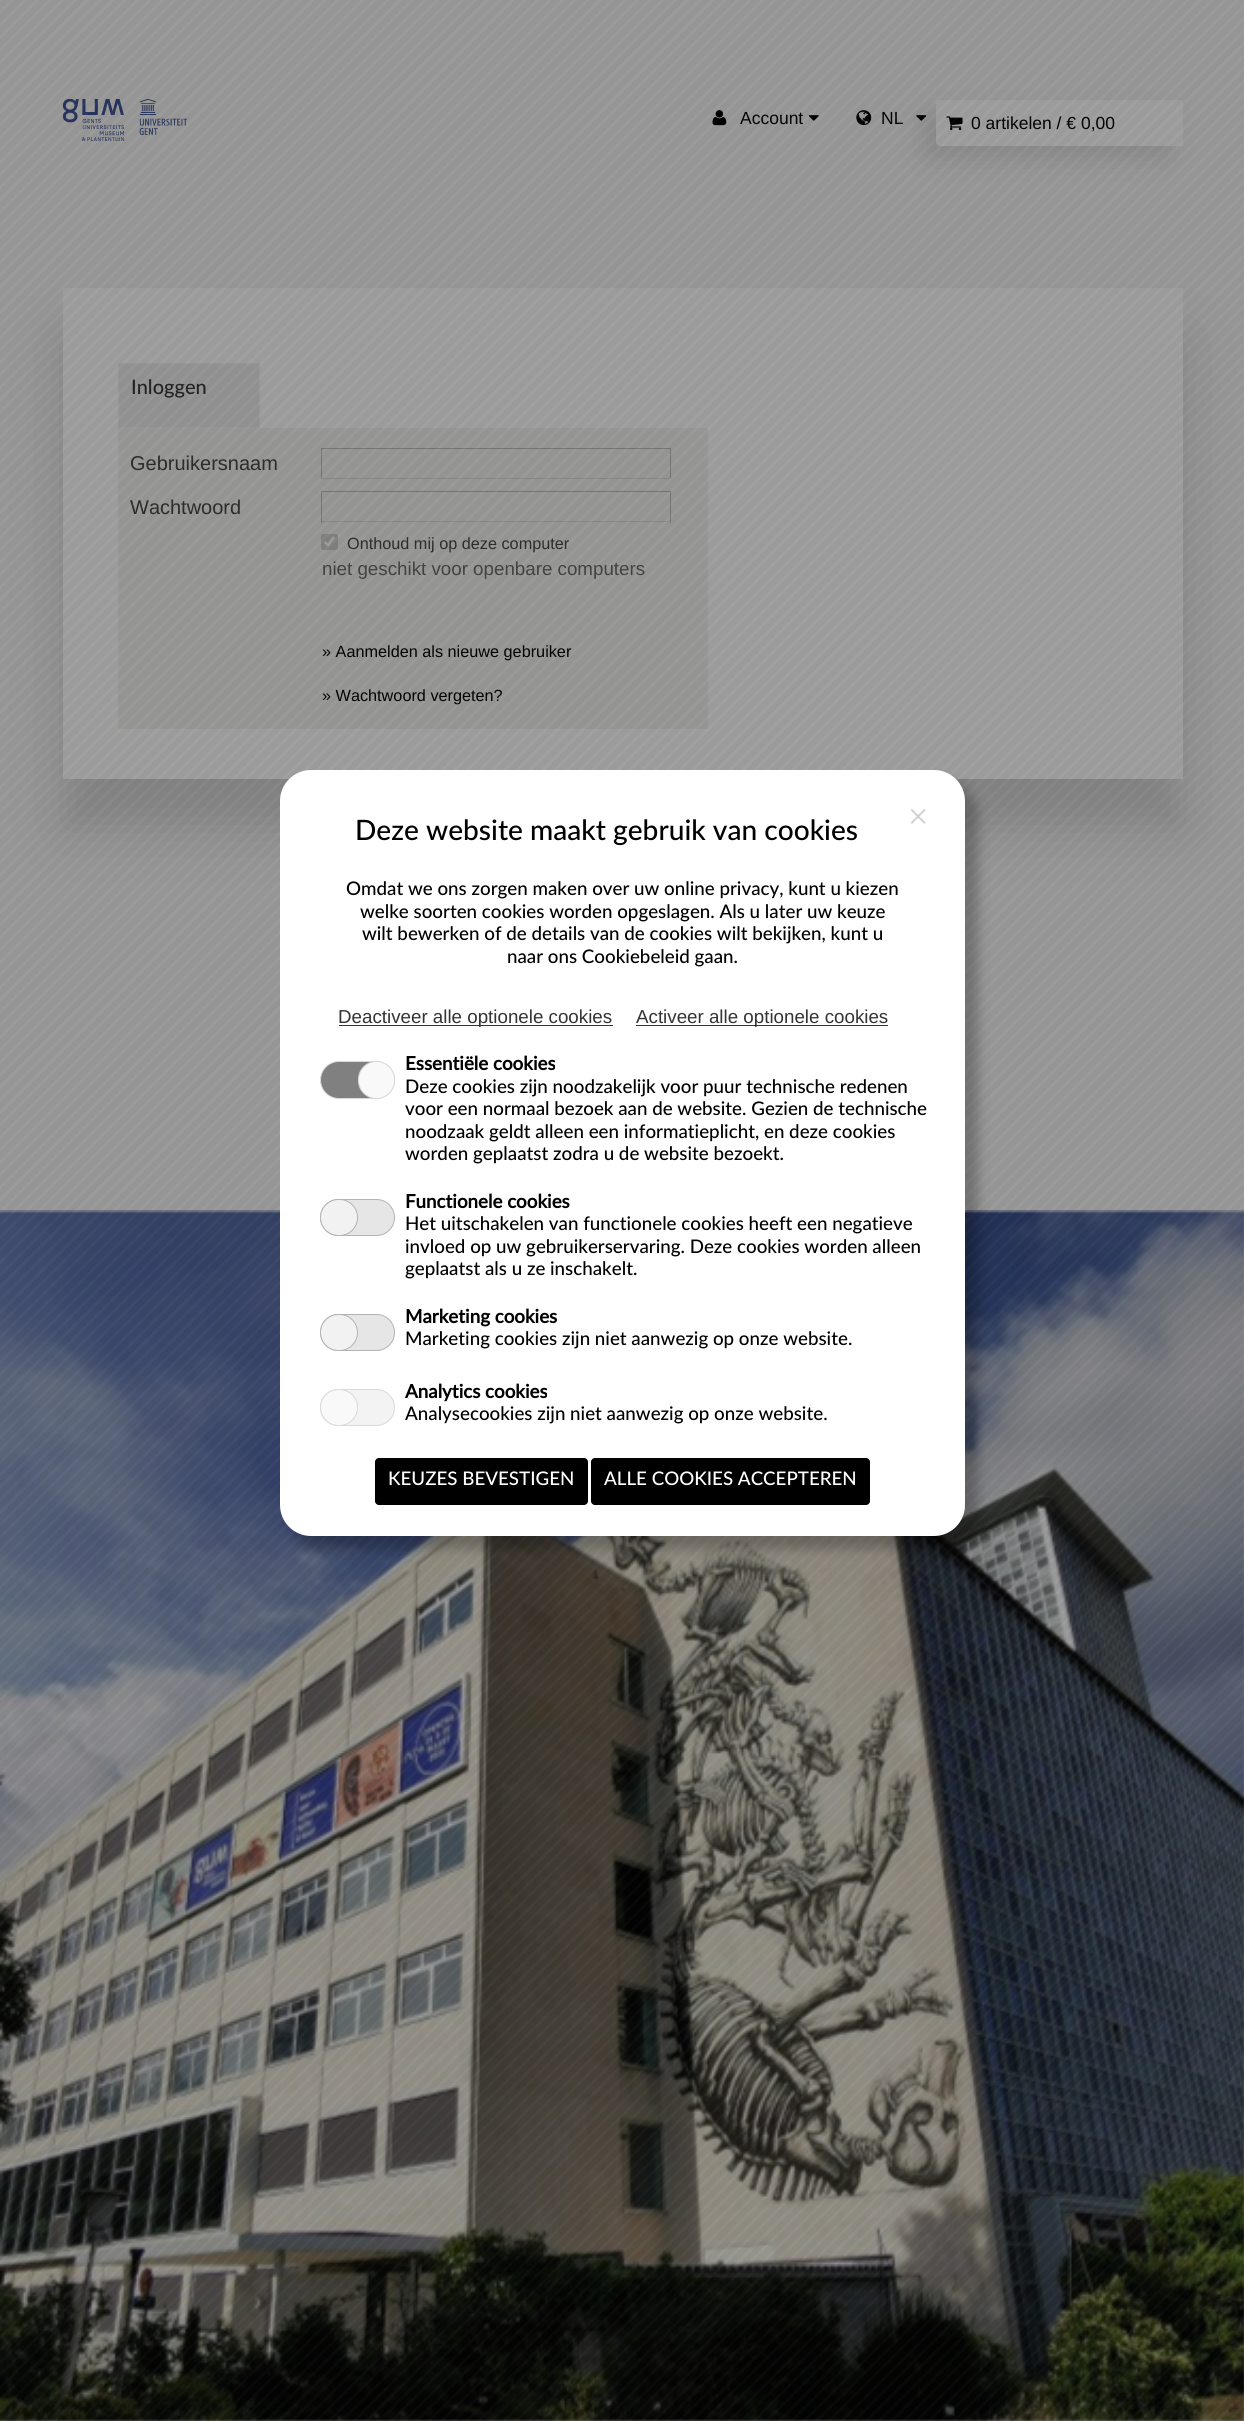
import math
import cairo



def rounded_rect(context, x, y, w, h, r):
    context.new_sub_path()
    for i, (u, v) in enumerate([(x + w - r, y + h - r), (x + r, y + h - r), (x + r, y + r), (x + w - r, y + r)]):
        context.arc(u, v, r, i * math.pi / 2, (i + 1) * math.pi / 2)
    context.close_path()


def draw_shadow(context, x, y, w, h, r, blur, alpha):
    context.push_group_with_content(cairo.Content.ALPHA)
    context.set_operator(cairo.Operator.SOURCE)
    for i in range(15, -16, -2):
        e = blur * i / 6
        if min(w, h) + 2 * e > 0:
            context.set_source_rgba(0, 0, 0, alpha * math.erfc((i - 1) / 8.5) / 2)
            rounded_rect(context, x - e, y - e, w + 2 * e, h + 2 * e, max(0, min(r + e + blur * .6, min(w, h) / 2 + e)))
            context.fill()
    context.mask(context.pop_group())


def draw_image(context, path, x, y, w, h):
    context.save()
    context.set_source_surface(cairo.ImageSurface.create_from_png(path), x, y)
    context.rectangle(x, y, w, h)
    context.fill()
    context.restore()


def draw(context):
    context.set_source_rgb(245 / 255, 245 / 255, 245 / 255)
    context.paint()
    draw_image(context, "images/1.png", 63, 99, 124, 42)
    draw_image(context, "images/2.png", 712, 110, 15, 16)
    draw_image(context, "images/3.png", 808, 115, 11, 6)
    draw_image(context, "images/4.png", 856, 110, 16, 16)
    draw_image(context, "images/5.png", 916, 115, 11, 6)
    context.set_source_rgb(0, 0, 0)
    draw_shadow(context, 924, 113, 246, 46, 4, 12.5, 0.1)
    context.set_source_rgb(1, 1, 1)
    context.new_path()
    context.move_to(940, 100)
    context.line_to(1183, 100)
    context.line_to(1183, 146)
    context.line_to(940, 146)
    context.curve_to(938, 146, 936, 144, 936, 142)
    context.line_to(936, 104)
    context.curve_to(936, 102, 938, 100, 940, 100)
    context.close_path()
    context.fill()
    draw_image(context, "images/6.png", 946, 116, 17, 15)
    context.set_source_rgb(68 / 255, 68 / 255, 68 / 255)
    draw_shadow(context, 63, 338, 1120, 491, 0, 25, 0.2)
    context.set_source_rgb(1, 1, 1)
    context.rectangle(63, 288, 1120, 491)
    context.fill()
    context.set_source_rgb(236 / 255, 236 / 255, 236 / 255)
    context.rectangle(118.5, 363.5, 141, 64)
    context.fill_preserve()
    context.set_source_rgb(244 / 255, 244 / 255, 242 / 255)
    context.set_line_width(1)
    context.stroke()
    context.rectangle(118, 428, 590, 301)
    context.fill()
    context.set_source_rgb(189 / 255, 189 / 255, 189 / 255)
    context.rectangle(321, 448, 350, 1)
    context.fill()
    context.rectangle(670, 448, 1, 31)
    context.fill()
    context.set_source_rgb(219 / 255, 219 / 255, 219 / 255)
    context.rectangle(321, 478, 350, 1)
    context.fill()
    context.set_source_rgb(189 / 255, 189 / 255, 189 / 255)
    context.rectangle(321, 448, 1, 31)
    context.fill()
    context.rectangle(321, 491, 350, 1)
    context.fill()
    context.rectangle(670, 491, 1, 32)
    context.fill()
    context.set_source_rgb(219 / 255, 219 / 255, 219 / 255)
    context.rectangle(321, 521, 350, 1)
    context.fill()
    context.set_source_rgb(189 / 255, 189 / 255, 189 / 255)
    context.rectangle(321, 491, 1, 32)
    context.fill()
    context.set_source_rgb(206 / 255, 206 / 255, 205 / 255)
    rounded_rect(context, 321, 534, 17, 16, 2.5)
    context.fill()
    context.new_path()
    context.move_to(324.5, 542)
    context.line_to(328, 545)
    context.line_to(334, 537)
    context.set_source_rgb(1, 1, 1)
    context.set_line_width(2.6)
    context.stroke()
    draw_image(context, "images/9.png", 0, 1210, 1244, 1211)
    context.select_font_face("Liberation Sans")
    context.set_font_size(17.5)
    context.set_source_rgb(0, 0, 0)
    context.move_to(740, 124)
    context.show_text("Account")
    context.move_to(881, 124)
    context.show_text("NL")
    context.move_to(971, 129)
    context.show_text("0 artikelen / € 0,00")
    context.select_font_face("Lato Medium")
    context.set_font_size(20)
    context.set_source_rgb(51 / 255, 51 / 255, 51 / 255)
    context.move_to(131, 394)
    context.show_text("Inloggen")
    context.select_font_face("Liberation Sans")
    context.set_source_rgb(68 / 255, 68 / 255, 68 / 255)
    context.move_to(130, 470)
    context.show_text("Gebruikersnaam")
    context.move_to(130, 514)
    context.show_text("Wachtwoord")
    context.set_font_size(16.25)
    context.move_to(347, 549)
    context.show_text("Onthoud mij op deze computer")
    context.set_font_size(18.75)
    context.set_source_rgb(105 / 255, 105 / 255, 105 / 255)
    context.move_to(322, 575)
    context.show_text("niet geschikt voor openbare computers")
    context.set_font_size(16.25)
    context.set_source_rgb(0, 0, 0)
    context.move_to(322, 657)
    context.show_text("» Aanmelden als nieuwe gebruiker")
    context.move_to(322, 701)
    context.show_text("» Wachtwoord vergeten?")
    draw_image(context, "images/7.png", 0, 0, 1244, 2421)
    context.set_source_rgb(0, 0, 0)
    draw_shadow(context, 293, 783, 685, 766, 31, 6, 0.25)
    context.set_source_rgb(1, 1, 1)
    rounded_rect(context, 286.5, 776.5, 672, 753, 24.5)
    context.fill_preserve()
    context.set_line_width(13)
    context.stroke()
    draw_image(context, "images/8.png", 910, 808, 16, 16)
    context.select_font_face("Lato Medium")
    context.set_font_size(28.1)
    context.set_source_rgb(0, 0, 0)
    context.move_to(355, 840)
    context.show_text("Deze website maakt gebruik van cookies")
    context.set_font_size(18.75)
    context.move_to(346, 895)
    context.show_text("Omdat we ons zorgen maken over uw online privacy, kunt u kiezen")
    context.move_to(360, 918)
    context.show_text("welke soorten cookies worden opgeslagen. Als u later uw keuze")
    context.move_to(362, 940)
    context.show_text("wilt bewerken of de details van de cookies wilt bekijken, kunt u")
    context.move_to(507, 963)
    context.show_text("naar ons Cookiebeleid gaan.")
    context.set_source_rgb(51 / 255, 51 / 255, 51 / 255)
    context.rectangle(339, 1025, 274, 1)
    context.fill()
    context.select_font_face("Liberation Sans")
    context.move_to(338, 1023)
    context.show_text("Deactiveer alle optionele cookies")
    context.rectangle(636, 1025, 252, 1)
    context.fill()
    context.move_to(636, 1023)
    context.show_text("Activeer alle optionele cookies")
    context.set_source_rgb(128 / 255, 128 / 255, 128 / 255)
    rounded_rect(context, 320.5, 1061.5, 74, 37, 18.5)
    context.fill_preserve()
    context.set_source_rgb(217 / 255, 217 / 255, 217 / 255)
    context.set_line_width(1)
    context.stroke()
    context.set_source_rgb(249 / 255, 249 / 255, 249 / 255)
    rounded_rect(context, 358.5, 1061.5, 36, 37, 18)
    context.fill_preserve()
    context.set_source_rgb(217 / 255, 217 / 255, 217 / 255)
    context.stroke()
    context.select_font_face("Lato", cairo.FontSlant.NORMAL, cairo.FontWeight.BOLD)
    context.set_source_rgb(0, 0, 0)
    context.move_to(405, 1070)
    context.show_text("Essentiële cookies")
    context.select_font_face("Lato Medium")
    context.move_to(405, 1093)
    context.show_text("Deze cookies zijn noodzakelijk voor puur technische redenen")
    context.move_to(405, 1115)
    context.show_text("voor een normaal bezoek aan de website. Gezien de technische")
    context.move_to(405, 1138)
    context.show_text("noodzaak geldt alleen een informatieplicht, en deze cookies")
    context.move_to(405, 1160)
    context.show_text("worden geplaatst zodra u de website bezoekt.")
    context.set_source_rgb(230 / 255, 230 / 255, 230 / 255)
    rounded_rect(context, 320.5, 1199.5, 74, 36, 18)
    context.fill_preserve()
    context.set_source_rgb(179 / 255, 179 / 255, 179 / 255)
    context.stroke()
    context.set_source_rgb(242 / 255, 242 / 255, 242 / 255)
    rounded_rect(context, 320.5, 1199.5, 37, 36, 18)
    context.fill_preserve()
    context.set_source_rgb(179 / 255, 179 / 255, 179 / 255)
    context.stroke()
    context.select_font_face("Lato", cairo.FontSlant.NORMAL, cairo.FontWeight.BOLD)
    context.set_source_rgb(0, 0, 0)
    context.move_to(405, 1208)
    context.show_text("Functionele cookies")
    context.select_font_face("Lato Medium")
    context.move_to(405, 1230)
    context.show_text("Het uitschakelen van functionele cookies heeft een negatieve")
    context.move_to(405, 1253)
    context.show_text("invloed op uw gebruikerservaring. Deze cookies worden alleen")
    context.move_to(405, 1275)
    context.show_text("geplaatst als u ze inschakelt.")
    context.set_source_rgb(230 / 255, 230 / 255, 230 / 255)
    rounded_rect(context, 320.5, 1314.5, 74, 36, 18)
    context.fill_preserve()
    context.set_source_rgb(179 / 255, 179 / 255, 179 / 255)
    context.stroke()
    context.set_source_rgb(242 / 255, 242 / 255, 242 / 255)
    rounded_rect(context, 320.5, 1314.5, 37, 36, 18)
    context.fill_preserve()
    context.set_source_rgb(179 / 255, 179 / 255, 179 / 255)
    context.stroke()
    context.select_font_face("Lato", cairo.FontSlant.NORMAL, cairo.FontWeight.BOLD)
    context.set_source_rgb(0, 0, 0)
    context.move_to(405, 1323)
    context.show_text("Marketing cookies")
    context.select_font_face("Lato Medium")
    context.move_to(405, 1345)
    context.show_text("Marketing cookies zijn niet aanwezig op onze website.")
    context.set_source_rgb(243 / 255, 243 / 255, 243 / 255)
    rounded_rect(context, 320.5, 1389.5, 74, 36, 18)
    context.fill_preserve()
    context.set_source_rgb(217 / 255, 217 / 255, 217 / 255)
    context.stroke()
    context.set_source_rgb(249 / 255, 249 / 255, 249 / 255)
    rounded_rect(context, 320.5, 1389.5, 37, 36, 18)
    context.fill_preserve()
    context.set_source_rgb(217 / 255, 217 / 255, 217 / 255)
    context.stroke()
    context.select_font_face("Lato", cairo.FontSlant.NORMAL, cairo.FontWeight.BOLD)
    context.set_source_rgb(0, 0, 0)
    context.move_to(405, 1398)
    context.show_text("Analytics cookies")
    context.select_font_face("Lato Medium")
    context.move_to(405, 1420)
    context.show_text("Analysecookies zijn niet aanwezig op onze website.")
    rounded_rect(context, 375, 1458, 213, 47, 4)
    context.fill()
    context.set_source_rgb(1, 1, 1)
    context.move_to(388, 1485)
    context.show_text("KEUZES BEVESTIGEN")
    context.set_source_rgb(0, 0, 0)
    rounded_rect(context, 591, 1458, 279, 47, 4)
    context.fill()
    context.set_source_rgb(1, 1, 1)
    context.move_to(604, 1485)
    context.show_text("ALLE COOKIES ACCEPTEREN")


surface = cairo.ImageSurface(cairo.Format.RGB24, 1244, 2421)
context = cairo.Context(surface)
options = cairo.FontOptions()
options.set_hint_metrics(cairo.HintMetrics.OFF)
options.set_hint_style(cairo.HintStyle.NONE)
context.set_font_options(options)
context.set_miter_limit(4)
draw(context)
surface.write_to_png("out.png")
